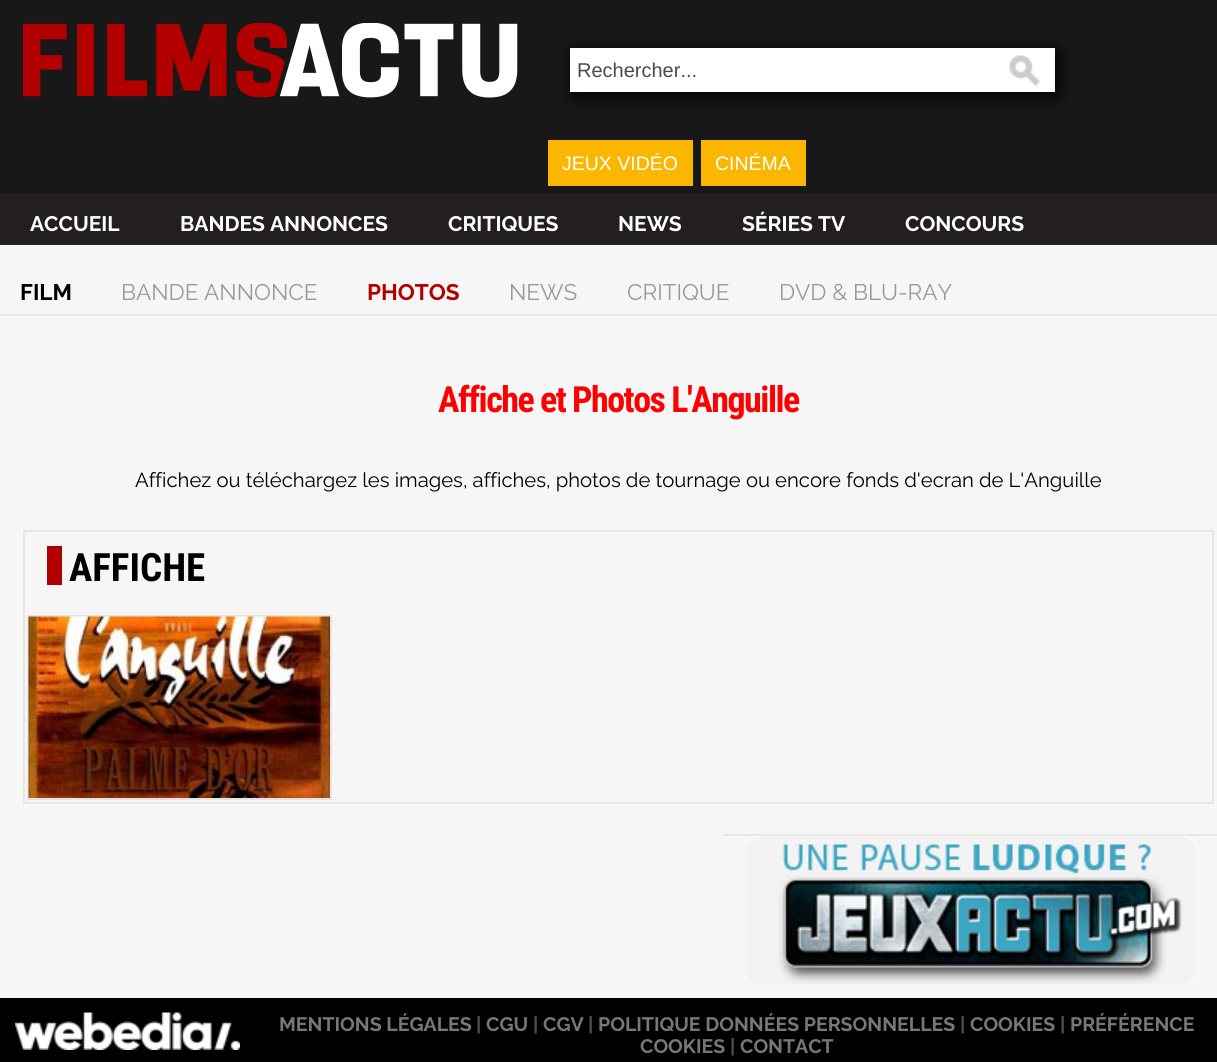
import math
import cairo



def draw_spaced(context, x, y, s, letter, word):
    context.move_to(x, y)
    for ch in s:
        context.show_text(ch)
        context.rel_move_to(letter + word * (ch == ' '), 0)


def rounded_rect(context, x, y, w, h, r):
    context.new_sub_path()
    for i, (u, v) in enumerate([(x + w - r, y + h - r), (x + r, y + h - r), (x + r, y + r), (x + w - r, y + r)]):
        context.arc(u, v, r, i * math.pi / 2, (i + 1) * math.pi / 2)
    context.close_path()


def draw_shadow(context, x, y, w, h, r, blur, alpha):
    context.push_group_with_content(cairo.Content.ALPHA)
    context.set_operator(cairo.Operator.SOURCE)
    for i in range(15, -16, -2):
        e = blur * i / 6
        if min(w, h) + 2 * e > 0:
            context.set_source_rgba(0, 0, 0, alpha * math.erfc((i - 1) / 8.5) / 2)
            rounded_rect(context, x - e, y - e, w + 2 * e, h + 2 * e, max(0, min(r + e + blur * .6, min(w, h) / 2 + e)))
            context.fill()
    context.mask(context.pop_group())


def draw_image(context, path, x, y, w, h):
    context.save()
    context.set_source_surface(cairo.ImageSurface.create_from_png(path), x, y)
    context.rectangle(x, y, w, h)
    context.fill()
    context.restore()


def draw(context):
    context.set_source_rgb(24 / 255, 24 / 255, 24 / 255)
    context.paint()
    draw_image(context, "images/1.png", 23, 23, 495, 75)
    context.set_source_rgb(0, 0, 0)
    draw_shadow(context, 573, 51, 485, 44, 0, 9, 1)
    context.set_source_rgb(1, 1, 1)
    context.rectangle(570, 48, 485, 44)
    context.fill()
    draw_image(context, "images/2.png", 1009, 55, 31, 31)
    context.set_source_rgb(251 / 255, 183 / 255, 0)
    context.rectangle(548, 140, 145, 46)
    context.fill()
    context.rectangle(701, 140, 105, 46)
    context.fill()
    context.set_source_rgb(246 / 255, 246 / 255, 247 / 255)
    context.rectangle(0, 245, 1217, 753)
    context.fill()
    context.set_source_rgb(35 / 255, 31 / 255, 32 / 255)
    context.rectangle(0, 194, 1217, 51)
    context.fill()
    context.set_source_rgb(234 / 255, 234 / 255, 234 / 255)
    context.rectangle(0, 314, 1217, 2)
    context.fill()
    context.rectangle(24, 531, 1189, 272)
    context.set_source_rgb(230 / 255, 230 / 255, 230 / 255)
    context.stroke()
    context.set_source_rgb(178 / 255, 0, 0)
    context.rectangle(47, 546, 15, 39)
    context.fill()
    context.rectangle(28, 616, 303, 183)
    context.set_source_rgb(229 / 255, 229 / 255, 229 / 255)
    context.stroke()
    draw_image(context, "images/3.png", 28, 616, 302, 182)
    context.set_source_rgb(230 / 255, 230 / 255, 230 / 255)
    context.rectangle(723, 834, 494, 2)
    context.fill()
    draw_image(context, "images/4.png", 746, 835, 451, 149)
    context.set_source_rgb(0, 0, 0)
    context.rectangle(0, 998, 1217, 64)
    context.fill()
    draw_image(context, "images/5.png", 15, 1012, 225, 38)
    context.select_font_face("Liberation Sans")
    context.set_font_size(20)
    context.set_source_rgb(71 / 255, 75 / 255, 84 / 255)
    context.move_to(577, 77)
    context.show_text("Rechercher...")
    context.set_font_size(19.5)
    context.set_source_rgb(1, 1, 1)
    context.move_to(562, 170)
    context.show_text("JEUX VIDÉO")
    context.move_to(715, 170)
    context.show_text("CINÉMA")
    context.select_font_face("Raleway", cairo.FontSlant.NORMAL, cairo.FontWeight.BOLD)
    context.set_font_size(21)
    context.move_to(30, 231)
    context.show_text("ACCUEIL")
    context.move_to(180, 231)
    context.show_text("BANDES ANNONCES")
    context.move_to(448, 231)
    context.show_text("CRITIQUES")
    context.move_to(618, 231)
    context.show_text("NEWS")
    context.move_to(742, 231)
    context.show_text("SÉRIES TV")
    context.move_to(905, 231)
    context.show_text("CONCOURS")
    context.set_font_size(22.5)
    context.set_source_rgb(0, 0, 0)
    context.move_to(20, 300)
    context.show_text("FILM")
    context.select_font_face("Raleway")
    context.set_source_rgb(153 / 255, 153 / 255, 153 / 255)
    context.move_to(121, 300)
    context.show_text("BANDE ANNONCE")
    context.select_font_face("Raleway", cairo.FontSlant.NORMAL, cairo.FontWeight.BOLD)
    context.set_source_rgb(178 / 255, 0, 0)
    context.move_to(367, 300)
    context.show_text("PHOTOS")
    context.select_font_face("Raleway")
    context.set_source_rgb(153 / 255, 153 / 255, 153 / 255)
    context.move_to(509, 300)
    context.show_text("NEWS")
    context.move_to(627, 300)
    context.show_text("CRITIQUE")
    context.move_to(779, 300)
    context.show_text("DVD & BLU-RAY")
    context.select_font_face("Roboto Condensed", cairo.FontSlant.NORMAL, cairo.FontWeight.BOLD)
    context.set_font_size(36)
    context.set_source_rgb(1, 0, 0)
    draw_spaced(context, 438, 412, "Affiche et Photos L'Anguille", -1.5, 0)
    context.select_font_face("Raleway")
    context.set_font_size(20.25)
    context.set_source_rgb(0, 0, 0)
    context.move_to(135, 487)
    context.show_text("Affichez ou téléchargez les images, affiches, photos de tournage ou encore fonds d'ecran de L'Anguille")
    context.select_font_face("Roboto Condensed", cairo.FontSlant.NORMAL, cairo.FontWeight.BOLD)
    context.set_font_size(39)
    context.move_to(69, 581)
    context.show_text("AFFICHE")
    context.select_font_face("Raleway", cairo.FontSlant.NORMAL, cairo.FontWeight.BOLD)
    context.set_font_size(19.5)
    context.set_source_rgb(119 / 255, 119 / 255, 119 / 255)
    context.move_to(279, 1031)
    context.show_text("MENTIONS LÉGALES")
    context.set_source_rgb(79 / 255, 79 / 255, 79 / 255)
    context.move_to(476, 1031)
    context.show_text("|")
    context.set_source_rgb(119 / 255, 119 / 255, 119 / 255)
    context.move_to(486, 1031)
    context.show_text("CGU")
    context.set_source_rgb(79 / 255, 79 / 255, 79 / 255)
    context.move_to(533, 1031)
    context.show_text("|")
    context.set_source_rgb(119 / 255, 119 / 255, 119 / 255)
    context.move_to(543, 1031)
    context.show_text("CGV")
    context.set_source_rgb(79 / 255, 79 / 255, 79 / 255)
    context.move_to(588, 1031)
    context.show_text("|")
    context.set_source_rgb(119 / 255, 119 / 255, 119 / 255)
    context.move_to(598, 1031)
    context.show_text("POLITIQUE DONNÉES PERSONNELLES")
    context.set_source_rgb(79 / 255, 79 / 255, 79 / 255)
    context.move_to(960, 1031)
    context.show_text("|")
    context.set_source_rgb(119 / 255, 119 / 255, 119 / 255)
    context.move_to(970, 1031)
    context.show_text("COOKIES")
    context.set_source_rgb(79 / 255, 79 / 255, 79 / 255)
    context.move_to(1060, 1031)
    context.show_text("|")
    context.set_source_rgb(119 / 255, 119 / 255, 119 / 255)
    context.move_to(1070, 1031)
    context.show_text("PRÉFÉRENCE")
    context.move_to(640, 1053)
    context.show_text("COOKIES")
    context.set_source_rgb(79 / 255, 79 / 255, 79 / 255)
    context.move_to(730, 1053)
    context.show_text("|")
    context.set_source_rgb(119 / 255, 119 / 255, 119 / 255)
    context.move_to(740, 1053)
    context.show_text("CONTACT")


surface = cairo.ImageSurface(cairo.Format.RGB24, 1217, 1062)
context = cairo.Context(surface)
options = cairo.FontOptions()
options.set_hint_metrics(cairo.HintMetrics.OFF)
options.set_hint_style(cairo.HintStyle.NONE)
context.set_font_options(options)
context.set_miter_limit(4)
draw(context)
surface.write_to_png("out.png")
